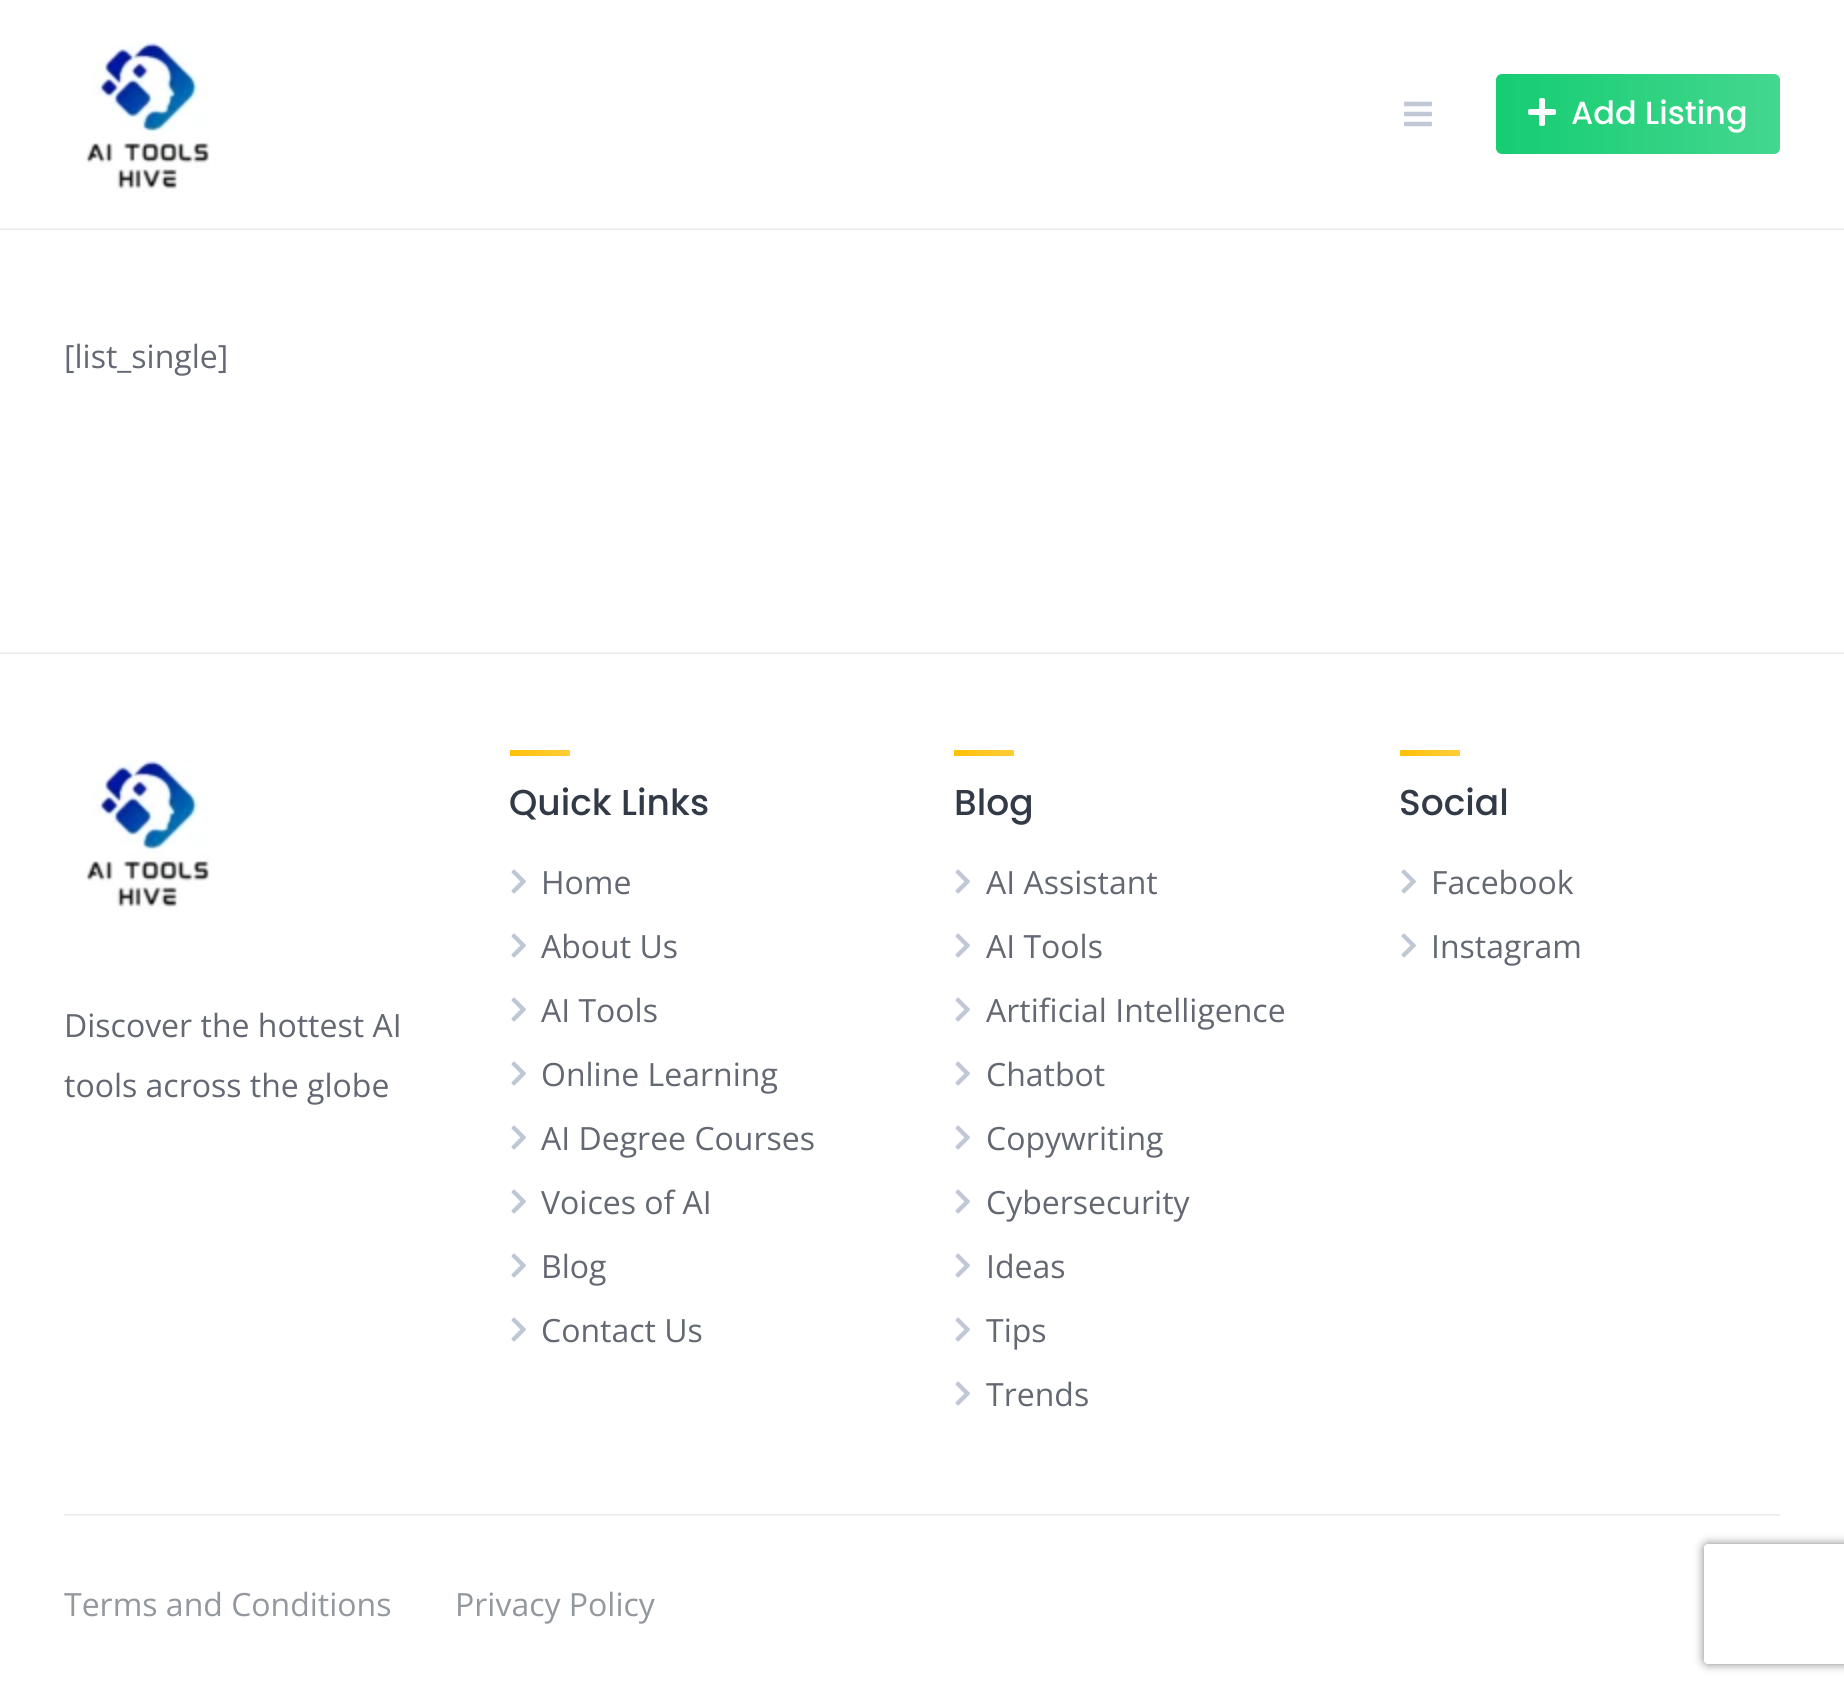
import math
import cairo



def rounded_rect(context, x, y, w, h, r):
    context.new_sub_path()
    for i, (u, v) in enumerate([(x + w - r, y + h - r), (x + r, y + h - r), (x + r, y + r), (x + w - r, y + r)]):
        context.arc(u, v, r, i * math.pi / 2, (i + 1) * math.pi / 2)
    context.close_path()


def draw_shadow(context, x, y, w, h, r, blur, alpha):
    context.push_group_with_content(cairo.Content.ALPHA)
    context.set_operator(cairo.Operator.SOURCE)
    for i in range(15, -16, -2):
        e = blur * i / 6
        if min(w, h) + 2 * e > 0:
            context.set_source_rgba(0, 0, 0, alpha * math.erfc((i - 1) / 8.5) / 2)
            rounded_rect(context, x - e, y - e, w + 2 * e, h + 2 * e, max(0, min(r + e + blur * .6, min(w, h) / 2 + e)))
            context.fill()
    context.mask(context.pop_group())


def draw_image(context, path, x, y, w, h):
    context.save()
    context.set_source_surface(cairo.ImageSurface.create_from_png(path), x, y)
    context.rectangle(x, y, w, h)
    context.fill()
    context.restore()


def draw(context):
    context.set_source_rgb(1, 1, 1)
    context.paint()
    context.set_source_rgb(236 / 255, 239 / 255, 242 / 255)
    context.rectangle(0, 228, 1844, 2)
    context.fill()
    draw_image(context, "images/1.png", 85, 42, 125, 150)
    draw_image(context, "images/2.png", 1404, 101, 28, 26)
    context.set_source_rgb(21 / 255, 205 / 255, 114 / 255)
    rounded_rect(context, 1496, 74, 284, 80, 6)
    context.fill()
    gradient = cairo.LinearGradient(1496, 114, 1780, 114)
    gradient.add_color_stop_rgba(0, 1, 1, 1, 0)
    gradient.add_color_stop_rgba(1, 1, 1, 1, 0.2)
    context.set_source(gradient)
    rounded_rect(context, 1496, 74, 284, 80, 6)
    context.fill()
    draw_image(context, "images/3.png", 1528, 98, 28, 28)
    context.set_source_rgb(236 / 255, 239 / 255, 242 / 255)
    context.rectangle(0, 652, 1844, 2)
    context.fill()
    context.rectangle(64, 1514, 1716, 2)
    context.fill()
    draw_image(context, "images/1.png", 85, 760, 125, 150)
    gradient = cairo.LinearGradient(510, 753, 570, 753)
    gradient.add_color_stop_rgba(0, 1, 193 / 255, 7 / 255, 1)
    gradient.add_color_stop_rgba(1, 1, 205 / 255, 57 / 255, 1)
    context.set_source(gradient)
    context.rectangle(510, 750, 60, 6)
    context.fill()
    draw_image(context, "images/4.png", 511, 869, 15, 25)
    draw_image(context, "images/4.png", 511, 933, 15, 25)
    draw_image(context, "images/4.png", 511, 997, 15, 25)
    draw_image(context, "images/4.png", 511, 1061, 15, 25)
    draw_image(context, "images/4.png", 511, 1125, 15, 25)
    draw_image(context, "images/4.png", 511, 1189, 15, 25)
    draw_image(context, "images/4.png", 511, 1253, 15, 25)
    draw_image(context, "images/4.png", 511, 1317, 15, 25)
    gradient = cairo.LinearGradient(954, 753, 1014, 753)
    gradient.add_color_stop_rgba(0, 1, 193 / 255, 7 / 255, 1)
    gradient.add_color_stop_rgba(1, 1, 205 / 255, 57 / 255, 1)
    context.set_source(gradient)
    context.rectangle(954, 750, 60, 6)
    context.fill()
    draw_image(context, "images/4.png", 955, 869, 15, 25)
    draw_image(context, "images/4.png", 955, 933, 15, 25)
    draw_image(context, "images/4.png", 955, 997, 15, 25)
    draw_image(context, "images/4.png", 955, 1061, 15, 25)
    draw_image(context, "images/4.png", 955, 1125, 15, 25)
    draw_image(context, "images/4.png", 955, 1189, 15, 25)
    draw_image(context, "images/4.png", 955, 1253, 15, 25)
    draw_image(context, "images/4.png", 955, 1317, 15, 25)
    draw_image(context, "images/4.png", 955, 1381, 15, 25)
    gradient = cairo.LinearGradient(1400, 753, 1460, 753)
    gradient.add_color_stop_rgba(0, 1, 193 / 255, 7 / 255, 1)
    gradient.add_color_stop_rgba(1, 1, 205 / 255, 57 / 255, 1)
    context.set_source(gradient)
    context.rectangle(1400, 750, 60, 6)
    context.fill()
    draw_image(context, "images/4.png", 1401, 869, 15, 25)
    draw_image(context, "images/4.png", 1401, 933, 15, 25)
    context.save()
    context.set_fill_rule(cairo.FillRule.EVEN_ODD)
    context.new_path()
    context.move_to(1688, 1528)
    context.line_to(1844, 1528)
    context.line_to(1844, 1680)
    context.line_to(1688, 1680)
    context.close_path()
    context.move_to(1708, 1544)
    context.line_to(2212, 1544)
    context.curve_to(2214, 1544, 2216, 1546, 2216, 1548)
    context.line_to(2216, 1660)
    context.curve_to(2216, 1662, 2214, 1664, 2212, 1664)
    context.line_to(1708, 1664)
    context.curve_to(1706, 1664, 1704, 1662, 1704, 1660)
    context.line_to(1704, 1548)
    context.curve_to(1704, 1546, 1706, 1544, 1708, 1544)
    context.close_path()
    context.clip()
    context.set_source_rgb(128 / 255, 128 / 255, 128 / 255)
    draw_shadow(context, 1704, 1544, 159, 120, 4, 5, 1)
    context.restore()
    context.select_font_face("Poppins Medium")
    context.set_font_size(32)
    context.set_source_rgb(1, 1, 1)
    context.move_to(1571, 124)
    context.show_text("Add Listing")
    context.select_font_face("Open Sans")
    context.set_source_rgb(99 / 255, 104 / 255, 115 / 255)
    context.move_to(64, 368)
    context.show_text("[list_single]")
    context.move_to(64, 1037)
    context.show_text("Discover the hottest AI")
    context.move_to(64, 1097)
    context.show_text("tools across the globe")
    context.select_font_face("Poppins Medium")
    context.set_font_size(36)
    context.set_source_rgb(51 / 255, 58 / 255, 71 / 255)
    context.move_to(509, 815)
    context.show_text("Quick Links")
    context.select_font_face("Open Sans")
    context.set_font_size(32)
    context.set_source_rgb(99 / 255, 104 / 255, 115 / 255)
    context.move_to(541, 894)
    context.show_text("Home")
    context.move_to(541, 958)
    context.show_text("About Us")
    context.move_to(541, 1022)
    context.show_text("AI Tools")
    context.move_to(541, 1086)
    context.show_text("Online Learning")
    context.move_to(541, 1150)
    context.show_text("AI Degree Courses")
    context.move_to(541, 1214)
    context.show_text("Voices of AI")
    context.move_to(541, 1278)
    context.show_text("Blog")
    context.move_to(541, 1342)
    context.show_text("Contact Us")
    context.select_font_face("Poppins Medium")
    context.set_font_size(36)
    context.set_source_rgb(51 / 255, 58 / 255, 71 / 255)
    context.move_to(954, 815)
    context.show_text("Blog")
    context.select_font_face("Open Sans")
    context.set_font_size(32)
    context.set_source_rgb(99 / 255, 104 / 255, 115 / 255)
    context.move_to(986, 894)
    context.show_text("AI Assistant")
    context.move_to(986, 958)
    context.show_text("AI Tools")
    context.move_to(986, 1022)
    context.show_text("Artificial Intelligence")
    context.move_to(986, 1086)
    context.show_text("Chatbot")
    context.move_to(986, 1150)
    context.show_text("Copywriting")
    context.move_to(986, 1214)
    context.show_text("Cybersecurity")
    context.move_to(986, 1278)
    context.show_text("Ideas")
    context.move_to(986, 1342)
    context.show_text("Tips")
    context.move_to(986, 1406)
    context.show_text("Trends")
    context.select_font_face("Poppins Medium")
    context.set_font_size(36)
    context.set_source_rgb(51 / 255, 58 / 255, 71 / 255)
    context.move_to(1399, 815)
    context.show_text("Social")
    context.select_font_face("Open Sans")
    context.set_font_size(32)
    context.set_source_rgb(99 / 255, 104 / 255, 115 / 255)
    context.move_to(1431, 894)
    context.show_text("Facebook")
    context.move_to(1431, 958)
    context.show_text("Instagram")
    context.set_source_rgb(147 / 255, 151 / 255, 158 / 255)
    context.move_to(64, 1616)
    context.show_text("Terms and Conditions")
    context.move_to(455, 1616)
    context.show_text("Privacy Policy")


surface = cairo.ImageSurface(cairo.Format.RGB24, 1844, 1692)
context = cairo.Context(surface)
options = cairo.FontOptions()
options.set_hint_metrics(cairo.HintMetrics.OFF)
options.set_hint_style(cairo.HintStyle.NONE)
context.set_font_options(options)
context.set_miter_limit(4)
draw(context)
surface.write_to_png("out.png")
